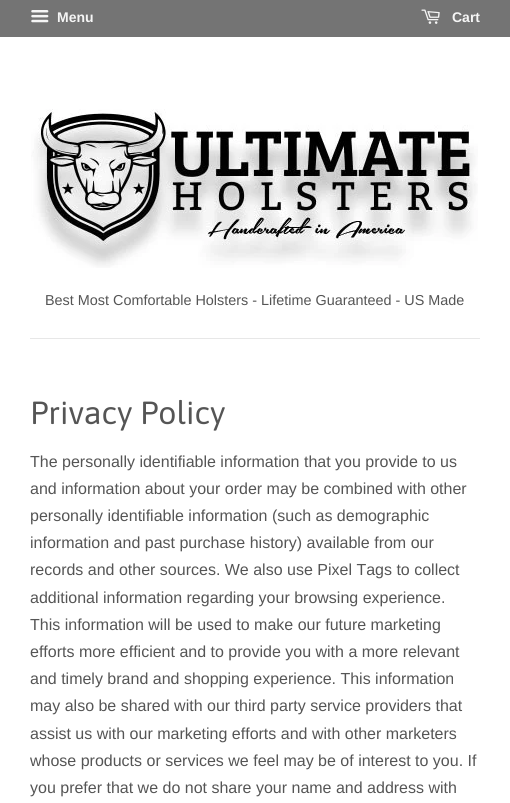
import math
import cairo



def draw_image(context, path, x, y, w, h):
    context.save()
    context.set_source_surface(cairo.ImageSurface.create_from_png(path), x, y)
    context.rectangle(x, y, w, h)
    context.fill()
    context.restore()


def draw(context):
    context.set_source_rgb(1, 1, 1)
    context.paint()
    context.set_source_rgb(116 / 255, 116 / 255, 116 / 255)
    context.rectangle(0, 0, 510, 37)
    context.fill()
    draw_image(context, "images/1.png", 31, 10, 18, 13)
    draw_image(context, "images/2.png", 421, 9, 19, 15)
    context.set_source_rgb(231 / 255, 231 / 255, 231 / 255)
    context.rectangle(30, 338, 450, 1)
    context.fill()
    draw_image(context, "images/3.png", 31, 109, 447, 159)
    context.select_font_face("Liberation Sans", cairo.FontSlant.NORMAL, cairo.FontWeight.BOLD)
    context.set_font_size(14)
    context.set_source_rgb(245 / 255, 245 / 255, 245 / 255)
    context.move_to(57, 22)
    context.show_text("Menu")
    context.move_to(452, 22)
    context.show_text("Cart")
    context.select_font_face("Liberation Sans")
    context.set_font_size(14.4)
    context.set_source_rgb(85 / 255, 85 / 255, 85 / 255)
    context.move_to(45, 305)
    context.show_text("Best Most Comfortable Holsters - Lifetime Guaranteed - US Made")
    context.select_font_face("Asap")
    context.set_font_size(32)
    context.move_to(30, 424)
    context.show_text("Privacy Policy")
    context.select_font_face("Liberation Sans")
    context.set_font_size(16)
    context.move_to(30, 467)
    context.show_text("The personally identifiable information that you provide to us")
    context.move_to(30, 494)
    context.show_text("and information about your order may be combined with other")
    context.move_to(30, 521)
    context.show_text("personally identifiable information (such as demographic")
    context.move_to(30, 548)
    context.show_text("information and past purchase history) available from our")
    context.move_to(30, 575)
    context.show_text("records and other sources. We also use Pixel Tags to collect")
    context.move_to(30, 603)
    context.show_text("additional information regarding your browsing experience.")
    context.move_to(30, 630)
    context.show_text("This information will be used to make our future marketing")
    context.move_to(30, 657)
    context.show_text("efforts more efficient and to provide you with a more relevant")
    context.move_to(30, 684)
    context.show_text("and timely brand and shopping experience. This information")
    context.move_to(30, 711)
    context.show_text("may also be shared with our third party service providers that")
    context.move_to(30, 739)
    context.show_text("assist us with our marketing efforts and with other marketers")
    context.move_to(30, 766)
    context.show_text("whose products or services we feel may be of interest to you. If")
    context.move_to(30, 793)
    context.show_text("you prefer that we do not share your name and address with")


surface = cairo.ImageSurface(cairo.Format.RGB24, 510, 803)
context = cairo.Context(surface)
options = cairo.FontOptions()
options.set_hint_metrics(cairo.HintMetrics.OFF)
options.set_hint_style(cairo.HintStyle.NONE)
context.set_font_options(options)
context.set_miter_limit(4)
draw(context)
surface.write_to_png("out.png")
